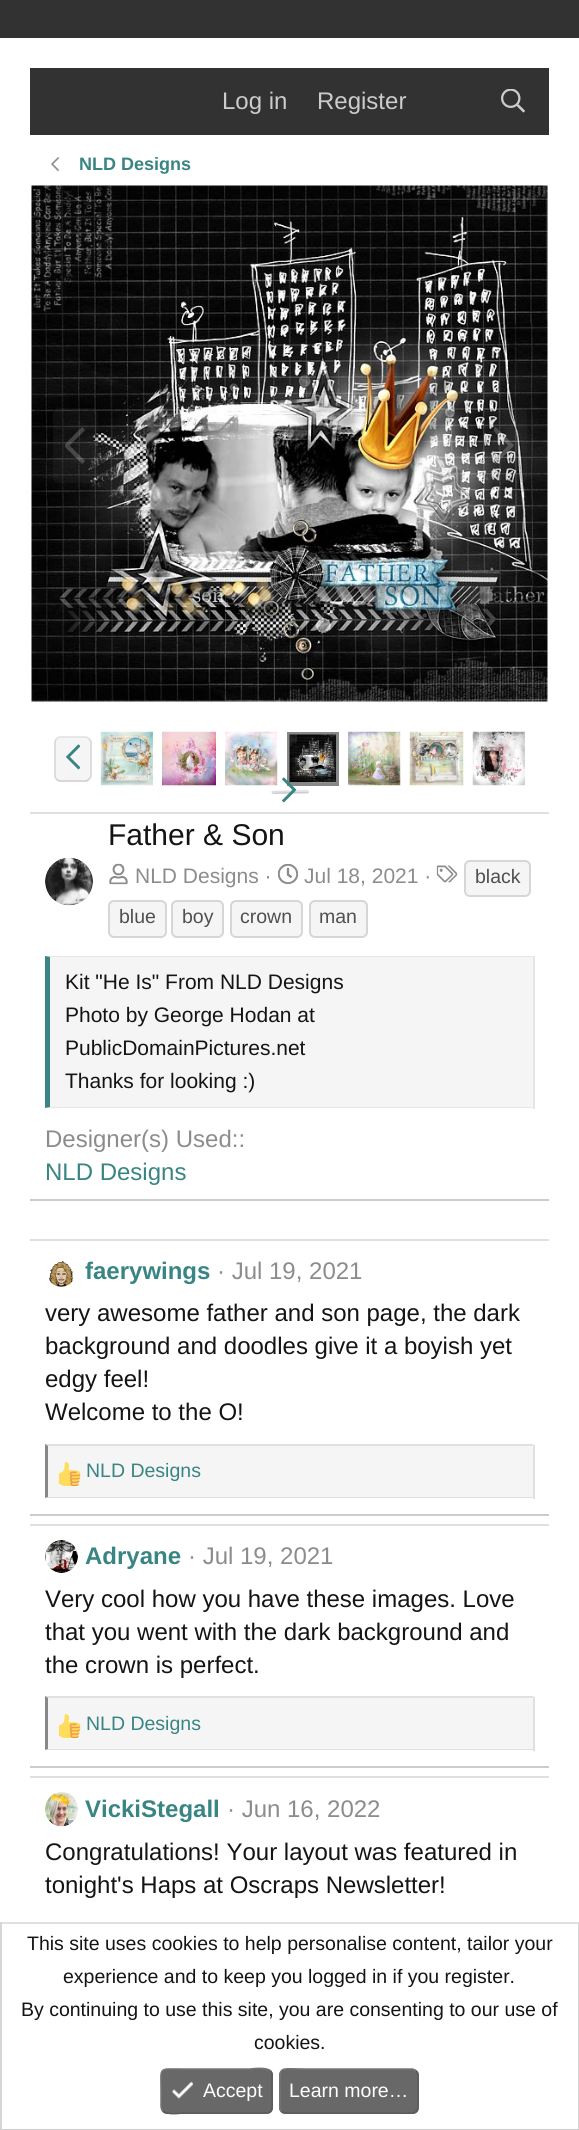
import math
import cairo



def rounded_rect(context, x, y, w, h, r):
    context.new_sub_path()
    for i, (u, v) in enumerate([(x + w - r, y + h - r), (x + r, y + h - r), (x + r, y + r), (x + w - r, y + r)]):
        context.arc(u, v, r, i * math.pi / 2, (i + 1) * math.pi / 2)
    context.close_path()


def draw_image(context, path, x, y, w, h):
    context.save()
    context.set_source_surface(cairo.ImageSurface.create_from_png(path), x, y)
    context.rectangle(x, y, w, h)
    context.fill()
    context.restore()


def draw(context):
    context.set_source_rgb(1, 1, 1)
    context.paint()
    context.set_source_rgb(50 / 255, 50 / 255, 50 / 255)
    context.rectangle(0, 0, 579, 38)
    context.fill()
    context.rectangle(30, 68, 519, 67)
    context.fill()
    draw_image(context, "images/1.png", 501, 89, 24, 24)
    draw_image(context, "images/2.png", 51, 157, 8, 14)
    draw_image(context, "images/3.png", 31, 185, 517, 517)
    context.set_source_rgba(79 / 255, 79 / 255, 79 / 255, 0.14)
    rounded_rect(context, 53, 408, 45, 75, 6)
    context.fill()
    draw_image(context, "images/4.png", 65, 427, 20, 37)
    rounded_rect(context, 482, 408, 45, 75, 6)
    context.fill()
    draw_image(context, "images/5.png", 494, 427, 20, 37)
    context.set_source_rgb(245 / 255, 245 / 255, 245 / 255)
    rounded_rect(context, 54, 737, 38, 45, 6)
    context.fill()
    context.new_path()
    context.move_to(56.5, 739)
    context.curve_to(57.5, 738, 58.5, 737, 60, 737)
    context.line_to(85.5, 737)
    context.curve_to(87, 737, 88, 738, 89, 739)
    context.set_source_rgb(224 / 255, 224 / 255, 224 / 255)
    context.set_line_width(1.5)
    context.stroke()
    context.new_path()
    context.move_to(89, 739)
    context.curve_to(90, 740, 91, 741, 91, 742.5)
    context.line_to(91, 775.5)
    context.curve_to(91, 777, 90, 778, 89, 779)
    context.set_source_rgb(214 / 255, 214 / 255, 214 / 255)
    context.stroke()
    context.new_path()
    context.move_to(89, 779)
    context.curve_to(88, 780, 87, 781, 85.5, 781)
    context.line_to(60, 781)
    context.curve_to(58.5, 781, 57.5, 780, 56.5, 779)
    context.set_source_rgb(204 / 255, 204 / 255, 204 / 255)
    context.stroke()
    context.new_path()
    context.move_to(56.5, 779)
    context.curve_to(55.5, 778, 55, 777, 55, 775.5)
    context.line_to(55, 742.5)
    context.curve_to(55, 741, 55.5, 740, 56.5, 739)
    context.set_source_rgb(214 / 255, 214 / 255, 214 / 255)
    context.stroke()
    draw_image(context, "images/6.png", 66, 744, 14, 26)
    draw_image(context, "images/7.png", 100, 731, 53, 55)
    draw_image(context, "images/8.png", 162, 731, 54, 55)
    draw_image(context, "images/9.png", 225, 731, 53, 55)
    context.rectangle(288.5, 733.5, 49, 51)
    context.set_source_rgb(136 / 255, 136 / 255, 136 / 255)
    context.set_line_width(3)
    context.stroke()
    draw_image(context, "images/10.png", 289, 734, 47, 49)
    draw_image(context, "images/11.png", 348, 731, 53, 55)
    draw_image(context, "images/12.png", 409, 731, 55, 55)
    draw_image(context, "images/13.png", 472, 731, 53, 55)
    context.set_source_rgb(245 / 255, 245 / 255, 245 / 255)
    rounded_rect(context, 272, 791, 37, 3, 1.5)
    context.fill()
    context.new_path()
    context.move_to(272.5, 791.5)
    context.line_to(302, 791)
    context.curve_to(304, 791, 306.5, 790, 308, 791.5)
    context.set_source_rgb(224 / 255, 224 / 255, 224 / 255)
    context.set_line_width(1.5)
    context.stroke()
    context.new_path()
    context.move_to(308, 791.5)
    context.curve_to(308.5, 792, 308.5, 792, 308, 792.5)
    context.set_source_rgb(214 / 255, 214 / 255, 214 / 255)
    context.stroke()
    context.new_path()
    context.move_to(308, 792.5)
    context.line_to(279, 793)
    context.curve_to(276.5, 793, 274, 794, 272.5, 792.5)
    context.set_source_rgb(204 / 255, 204 / 255, 204 / 255)
    context.stroke()
    context.new_path()
    context.move_to(272.5, 792.5)
    context.curve_to(272, 792, 272, 792, 272.5, 791.5)
    context.set_source_rgb(214 / 255, 214 / 255, 214 / 255)
    context.stroke()
    draw_image(context, "images/14.png", 282, 777, 15, 26)
    context.set_source_rgb(224 / 255, 224 / 255, 224 / 255)
    context.rectangle(30, 812, 519, 2)
    context.fill()
    context.set_source_rgb(204 / 255, 204 / 255, 204 / 255)
    context.rectangle(30, 1199, 519, 2)
    context.fill()
    draw_image(context, "images/15.png", 45, 858, 48, 48)
    draw_image(context, "images/16.png", 109, 863, 19, 22)
    draw_image(context, "images/17.png", 278, 863, 20, 22)
    draw_image(context, "images/18.png", 436, 865, 22, 18)
    context.set_source_rgb(245 / 255, 245 / 255, 245 / 255)
    rounded_rect(context, 465, 861, 65, 35, 5)
    context.fill_preserve()
    context.set_source_rgb(214 / 255, 214 / 255, 214 / 255)
    context.set_line_width(2)
    context.stroke()
    context.set_source_rgb(245 / 255, 245 / 255, 245 / 255)
    rounded_rect(context, 109, 901, 57, 36, 5)
    context.fill_preserve()
    context.set_source_rgb(214 / 255, 214 / 255, 214 / 255)
    context.stroke()
    context.set_source_rgb(245 / 255, 245 / 255, 245 / 255)
    rounded_rect(context, 172, 901, 51, 36, 5)
    context.fill_preserve()
    context.set_source_rgb(214 / 255, 214 / 255, 214 / 255)
    context.stroke()
    context.set_source_rgb(245 / 255, 245 / 255, 245 / 255)
    rounded_rect(context, 231, 901, 71, 36, 5)
    context.fill_preserve()
    context.set_source_rgb(214 / 255, 214 / 255, 214 / 255)
    context.stroke()
    context.set_source_rgb(245 / 255, 245 / 255, 245 / 255)
    rounded_rect(context, 310, 901, 57, 36, 5)
    context.fill_preserve()
    context.set_source_rgb(214 / 255, 214 / 255, 214 / 255)
    context.stroke()
    context.set_source_rgb(245 / 255, 245 / 255, 245 / 255)
    context.rectangle(50, 957, 483, 150)
    context.fill()
    context.set_source_rgb(229 / 255, 229 / 255, 229 / 255)
    context.new_path()
    context.move_to(45, 956)
    context.line_to(534, 956)
    context.line_to(532, 957)
    context.line_to(50, 957)
    context.close_path()
    context.fill()
    context.rectangle(533, 956, 2, 153)
    context.fill()
    context.new_path()
    context.move_to(534, 1108)
    context.line_to(45, 1108)
    context.line_to(50, 1107)
    context.line_to(532, 1107)
    context.close_path()
    context.fill()
    context.set_source_rgb(56 / 255, 133 / 255, 131 / 255)
    context.new_path()
    context.move_to(45, 1108)
    context.line_to(45, 956)
    context.line_to(50, 957)
    context.line_to(50, 1107)
    context.close_path()
    context.fill()
    context.set_source_rgb(224 / 255, 224 / 255, 224 / 255)
    context.rectangle(30, 1239, 519, 2)
    context.fill()
    context.set_source_rgb(204 / 255, 204 / 255, 204 / 255)
    context.rectangle(30, 1514, 519, 2)
    context.fill()
    draw_image(context, "images/19.png", 49, 1261, 25, 26)
    context.set_source_rgb(245 / 255, 245 / 255, 245 / 255)
    context.rectangle(48, 1446, 485, 51)
    context.fill()
    context.set_source_rgb(224 / 255, 224 / 255, 224 / 255)
    context.new_path()
    context.move_to(45, 1444)
    context.line_to(534, 1444)
    context.line_to(532, 1446)
    context.line_to(48, 1446)
    context.close_path()
    context.fill()
    context.rectangle(533, 1445, 2, 54)
    context.fill()
    context.new_path()
    context.move_to(534, 1498)
    context.line_to(45, 1498)
    context.line_to(48, 1497)
    context.line_to(532, 1497)
    context.close_path()
    context.fill()
    context.set_source_rgb(136 / 255, 136 / 255, 136 / 255)
    context.new_path()
    context.move_to(45, 1498)
    context.line_to(45, 1444)
    context.line_to(48, 1446)
    context.line_to(48, 1497)
    context.close_path()
    context.fill()
    draw_image(context, "images/20.png", 58, 1462, 23, 24)
    context.set_source_rgb(224 / 255, 224 / 255, 224 / 255)
    context.rectangle(30, 1524, 519, 2)
    context.fill()
    context.set_source_rgb(204 / 255, 204 / 255, 204 / 255)
    context.rectangle(30, 1766, 519, 2)
    context.fill()
    draw_image(context, "images/21.png", 45, 1540, 33, 33)
    context.set_source_rgb(245 / 255, 245 / 255, 245 / 255)
    context.rectangle(48, 1698, 485, 51)
    context.fill()
    context.set_source_rgb(224 / 255, 224 / 255, 224 / 255)
    context.new_path()
    context.move_to(45, 1696)
    context.line_to(534, 1696)
    context.line_to(532, 1698)
    context.line_to(48, 1698)
    context.close_path()
    context.fill()
    context.rectangle(533, 1697, 2, 54)
    context.fill()
    context.new_path()
    context.move_to(534, 1750)
    context.line_to(45, 1750)
    context.line_to(48, 1749)
    context.line_to(532, 1749)
    context.close_path()
    context.fill()
    context.set_source_rgb(136 / 255, 136 / 255, 136 / 255)
    context.new_path()
    context.move_to(45, 1750)
    context.line_to(45, 1696)
    context.line_to(48, 1698)
    context.line_to(48, 1749)
    context.close_path()
    context.fill()
    draw_image(context, "images/20.png", 58, 1714, 23, 24)
    context.set_source_rgb(224 / 255, 224 / 255, 224 / 255)
    context.rectangle(30, 1776, 519, 2)
    context.fill()
    draw_image(context, "images/22.png", 45, 1792, 33, 35)
    context.rectangle(0, 1922, 579, 2)
    context.fill()
    context.set_source_rgb(214 / 255, 214 / 255, 214 / 255)
    context.rectangle(578, 1922, 1, 208)
    context.fill()
    context.set_source_rgb(204 / 255, 204 / 255, 204 / 255)
    context.rectangle(0, 2129, 579, 1)
    context.fill()
    context.set_source_rgb(214 / 255, 214 / 255, 214 / 255)
    context.rectangle(0, 1922, 2, 208)
    context.fill()
    context.set_source_rgb(104 / 255, 104 / 255, 104 / 255)
    rounded_rect(context, 161, 2069, 112, 45, 6)
    context.fill()
    context.new_path()
    context.move_to(270.5, 2071)
    context.curve_to(273, 2073, 272, 2077, 272, 2080)
    context.line_to(272, 2091)
    context.curve_to(272, 2116, 276, 2113, 250, 2113)
    context.line_to(183, 2113)
    context.curve_to(182.5, 2113, 167, 2115.5, 163, 2111)
    context.set_source_rgb(91 / 255, 91 / 255, 91 / 255)
    context.set_line_width(1.5)
    context.stroke()
    context.new_path()
    context.move_to(163, 2111)
    context.curve_to(160.5, 2109, 161, 2105, 161, 2102)
    context.line_to(161, 2091)
    context.curve_to(161, 2066, 157.5, 2069, 183, 2069)
    context.line_to(250, 2069)
    context.curve_to(251, 2069, 266.5, 2066.5, 270.5, 2071)
    context.set_source_rgb(117 / 255, 117 / 255, 117 / 255)
    context.stroke()
    draw_image(context, "images/23.png", 172, 2081, 21, 18)
    context.set_source_rgb(104 / 255, 104 / 255, 104 / 255)
    rounded_rect(context, 279, 2069, 140, 45, 6)
    context.fill()
    context.new_path()
    context.move_to(416, 2071)
    context.curve_to(418.5, 2073, 418, 2077, 418, 2080)
    context.line_to(418, 2091)
    context.curve_to(418, 2117.5, 420.5, 2113, 391, 2113)
    context.line_to(285, 2113)
    context.curve_to(283.5, 2112.5, 282.5, 2112, 281.5, 2111)
    context.set_source_rgb(91 / 255, 91 / 255, 91 / 255)
    context.stroke()
    context.new_path()
    context.move_to(281.5, 2111)
    context.curve_to(279, 2109, 280, 2105, 280, 2102)
    context.line_to(280, 2091)
    context.curve_to(280, 2064.5, 277, 2069, 306, 2069)
    context.line_to(412.5, 2069)
    context.curve_to(414, 2069.5, 415, 2070, 416, 2071)
    context.set_source_rgb(117 / 255, 117 / 255, 117 / 255)
    context.stroke()
    context.select_font_face("Liberation Sans")
    context.set_font_size(24)
    context.set_source_rgb(204 / 255, 204 / 255, 204 / 255)
    context.move_to(222, 109)
    context.show_text("Log in")
    context.move_to(317, 109)
    context.show_text("Register")
    context.select_font_face("Liberation Sans", cairo.FontSlant.NORMAL, cairo.FontWeight.BOLD)
    context.set_font_size(18)
    context.set_source_rgb(56 / 255, 133 / 255, 131 / 255)
    context.move_to(79, 170)
    context.show_text("NLD Designs")
    context.select_font_face("Liberation Sans")
    context.set_font_size(30)
    context.set_source_rgb(20 / 255, 20 / 255, 20 / 255)
    context.move_to(108, 845)
    context.show_text("Father & Son")
    context.set_font_size(21)
    context.set_source_rgb(140 / 255, 140 / 255, 140 / 255)
    context.move_to(135, 883)
    context.show_text("NLD Designs ·")
    context.move_to(304, 883)
    context.show_text("Jul 18, 2021 ·")
    context.set_font_size(19.5)
    context.set_source_rgb(80 / 255, 80 / 255, 80 / 255)
    context.move_to(475, 883)
    context.show_text("black")
    context.move_to(119, 923)
    context.show_text("blue")
    context.move_to(182, 923)
    context.show_text("boy")
    context.move_to(240, 923)
    context.show_text("crown")
    context.move_to(319, 923)
    context.show_text("man")
    context.set_font_size(21)
    context.set_source_rgb(20 / 255, 20 / 255, 20 / 255)
    context.move_to(65, 989)
    context.show_text("Kit \"He Is\" From NLD Designs")
    context.move_to(65, 1022)
    context.show_text("Photo by George Hodan at")
    context.move_to(65, 1055)
    context.show_text("PublicDomainPictures.net")
    context.move_to(65, 1088)
    context.show_text("Thanks for looking :)")
    context.set_font_size(24)
    context.set_source_rgb(140 / 255, 140 / 255, 140 / 255)
    context.move_to(45, 1147)
    context.show_text("Designer(s) Used::")
    context.set_source_rgb(56 / 255, 133 / 255, 131 / 255)
    context.move_to(45, 1180)
    context.show_text("NLD Designs")
    context.select_font_face("Liberation Sans", cairo.FontSlant.NORMAL, cairo.FontWeight.BOLD)
    context.move_to(85, 1279)
    context.show_text("faerywings")
    context.select_font_face("Liberation Sans")
    context.set_source_rgb(140 / 255, 140 / 255, 140 / 255)
    context.move_to(217, 1279)
    context.show_text("· Jul 19, 2021")
    context.set_source_rgb(20 / 255, 20 / 255, 20 / 255)
    context.move_to(45, 1321)
    context.show_text("very awesome father and son page, the dark")
    context.move_to(45, 1354)
    context.show_text("background and doodles give it a boyish yet")
    context.move_to(45, 1387)
    context.show_text("edgy feel!")
    context.move_to(45, 1420)
    context.show_text("Welcome to the O!")
    context.set_font_size(19.5)
    context.set_source_rgb(56 / 255, 133 / 255, 131 / 255)
    context.move_to(86, 1477)
    context.show_text("NLD Designs")
    context.select_font_face("Liberation Sans", cairo.FontSlant.NORMAL, cairo.FontWeight.BOLD)
    context.set_font_size(24)
    context.move_to(85, 1564)
    context.show_text("Adryane")
    context.select_font_face("Liberation Sans")
    context.set_source_rgb(140 / 255, 140 / 255, 140 / 255)
    context.move_to(188, 1564)
    context.show_text("· Jul 19, 2021")
    context.set_source_rgb(20 / 255, 20 / 255, 20 / 255)
    context.move_to(45, 1607)
    context.show_text("Very cool how you have these images. Love")
    context.move_to(45, 1640)
    context.show_text("that you went with the dark background and")
    context.move_to(45, 1673)
    context.show_text("the crown is perfect.")
    context.set_font_size(19.5)
    context.set_source_rgb(56 / 255, 133 / 255, 131 / 255)
    context.move_to(86, 1730)
    context.show_text("NLD Designs")
    context.select_font_face("Liberation Sans", cairo.FontSlant.NORMAL, cairo.FontWeight.BOLD)
    context.set_font_size(24)
    context.move_to(85, 1817)
    context.show_text("VickiStegall")
    context.select_font_face("Liberation Sans")
    context.set_source_rgb(140 / 255, 140 / 255, 140 / 255)
    context.move_to(227, 1817)
    context.show_text("· Jun 16, 2022")
    context.set_source_rgb(20 / 255, 20 / 255, 20 / 255)
    context.move_to(45, 1860)
    context.show_text("Congratulations! Your layout was featured in")
    context.move_to(45, 1893)
    context.show_text("tonight's Haps at Oscraps Newsletter!")
    context.set_font_size(19.5)
    context.move_to(27, 1950)
    context.show_text("This site uses cookies to help personalise content, tailor your")
    context.move_to(63, 1983)
    context.show_text("experience and to keep you logged in if you register.")
    context.move_to(21, 2016)
    context.show_text("By continuing to use this site, you are consenting to our use of")
    context.move_to(254, 2049)
    context.show_text("cookies.")
    context.set_source_rgb(1, 1, 1)
    context.move_to(203, 2097)
    context.show_text("Accept")
    context.move_to(289, 2097)
    context.show_text("Learn more…")


surface = cairo.ImageSurface(cairo.Format.RGB24, 579, 2130)
context = cairo.Context(surface)
options = cairo.FontOptions()
options.set_hint_metrics(cairo.HintMetrics.OFF)
options.set_hint_style(cairo.HintStyle.NONE)
context.set_font_options(options)
context.set_miter_limit(4)
draw(context)
surface.write_to_png("out.png")
